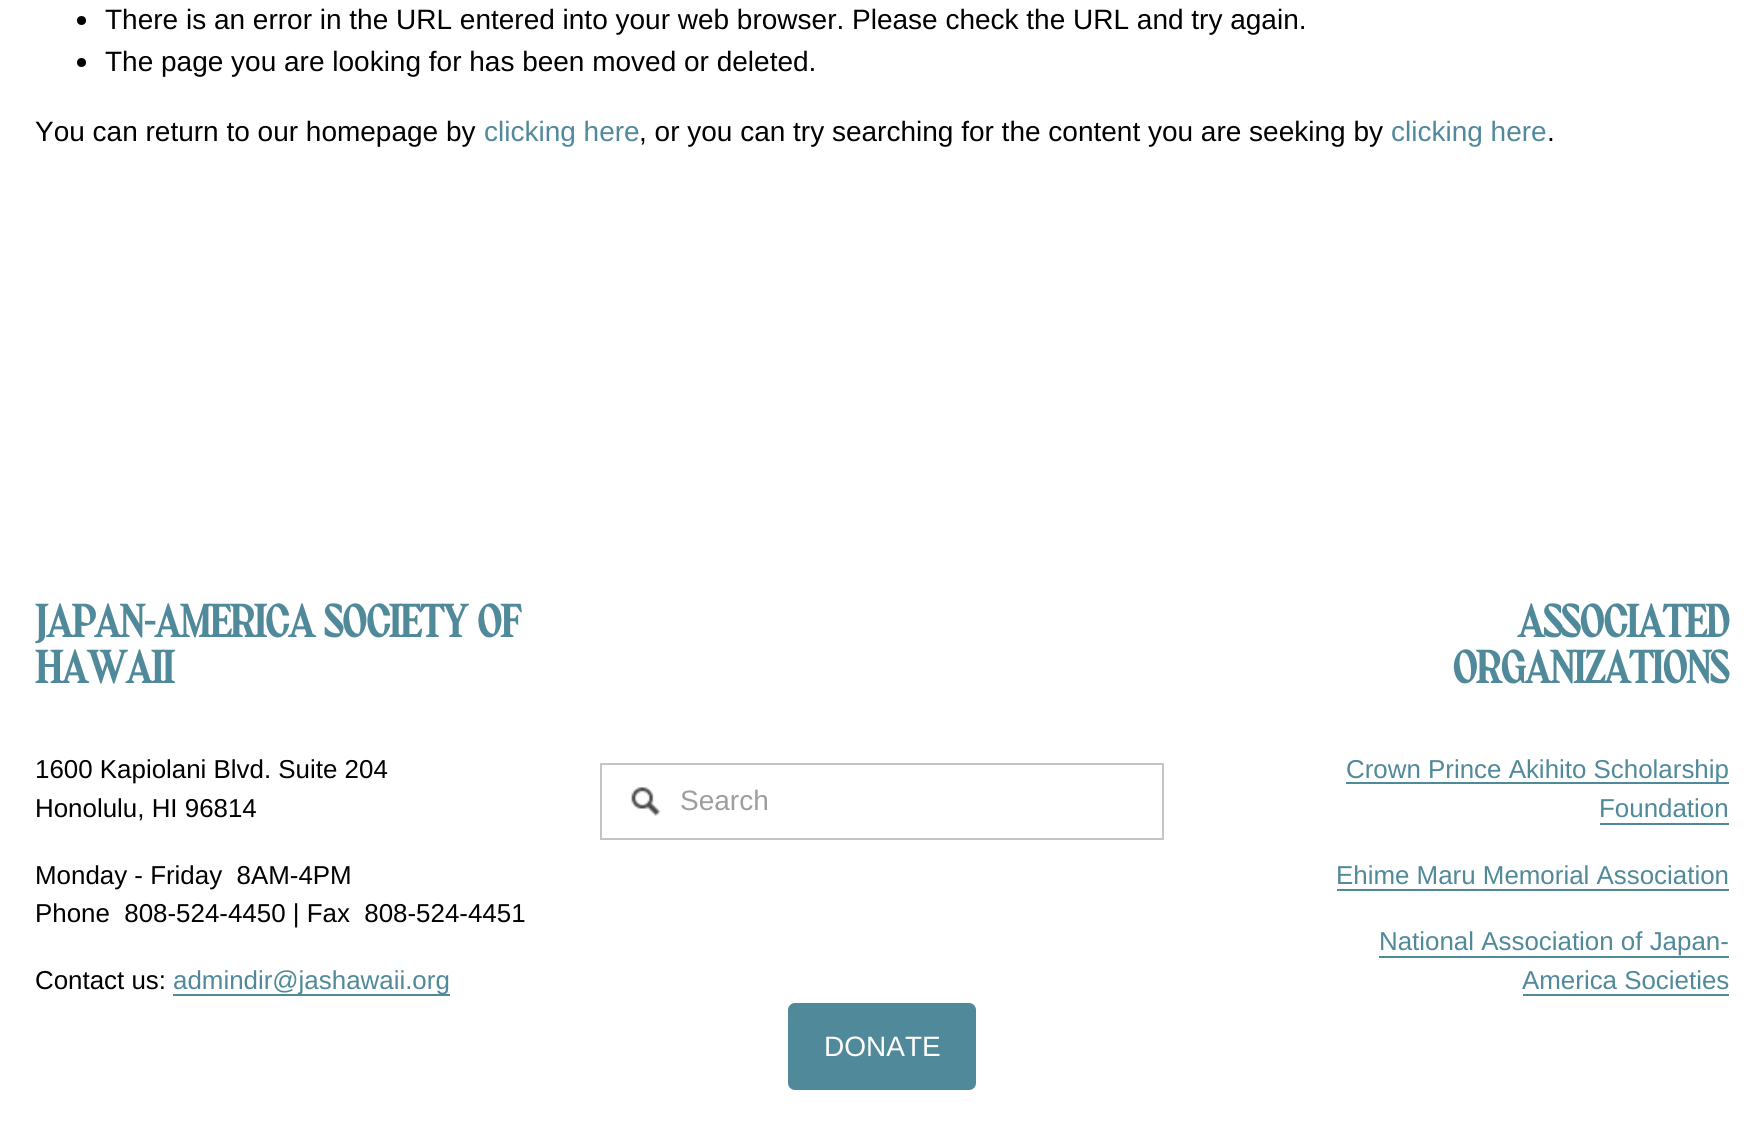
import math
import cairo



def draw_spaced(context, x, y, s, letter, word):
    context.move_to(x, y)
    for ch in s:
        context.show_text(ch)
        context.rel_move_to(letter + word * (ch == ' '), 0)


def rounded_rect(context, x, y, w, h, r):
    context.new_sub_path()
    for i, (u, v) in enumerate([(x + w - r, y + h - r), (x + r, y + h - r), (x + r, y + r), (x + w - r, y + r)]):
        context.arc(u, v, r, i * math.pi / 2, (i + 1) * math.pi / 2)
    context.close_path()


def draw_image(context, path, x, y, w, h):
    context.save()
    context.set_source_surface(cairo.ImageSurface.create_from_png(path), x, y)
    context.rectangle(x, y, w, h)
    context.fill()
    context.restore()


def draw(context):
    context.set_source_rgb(1, 1, 1)
    context.paint()
    context.set_source_rgb(0, 0, 0)
    context.arc(81.5, 20.5, 4.5, 0, 2 * math.pi)
    context.fill()
    context.arc(81.5, 62.5, 4.5, 0, 2 * math.pi)
    context.fill()
    context.set_source_rgb(80 / 255, 137 / 255, 154 / 255)
    context.rectangle(173, 994, 277, 2)
    context.fill()
    draw_image(context, "images/1.png", 631, 787, 30, 29)
    context.rectangle(601, 764, 562, 75)
    context.set_source_rgb(196 / 255, 196 / 255, 196 / 255)
    context.stroke()
    context.set_source_rgb(80 / 255, 137 / 255, 154 / 255)
    context.rectangle(1346, 782, 383, 2)
    context.fill()
    context.rectangle(1600, 823, 129, 2)
    context.fill()
    context.rectangle(1337, 889, 392, 2)
    context.fill()
    context.rectangle(1379, 956, 350, 2)
    context.fill()
    context.rectangle(1523, 994, 206, 2)
    context.fill()
    rounded_rect(context, 786, 1001, 192, 91, 9)
    context.fill_preserve()
    context.set_source_rgb(1, 1, 1)
    context.set_line_width(4)
    context.stroke()
    context.select_font_face("Liberation Sans")
    context.set_font_size(28)
    context.set_source_rgb(0, 0, 0)
    context.move_to(105, 29)
    context.show_text("There is an error in the URL entered into your web browser. Please check the URL and try again.")
    context.move_to(105, 71)
    context.show_text("The page you are looking for has been moved or deleted.")
    context.move_to(35, 141)
    context.show_text("You can return to our homepage by")
    context.set_source_rgb(80 / 255, 137 / 255, 154 / 255)
    context.move_to(484, 141)
    context.show_text("clicking here")
    context.set_source_rgb(0, 0, 0)
    context.move_to(639, 141)
    context.show_text(", or you can try searching for the content you are seeking by")
    context.set_source_rgb(80 / 255, 137 / 255, 154 / 255)
    context.move_to(1391, 141)
    context.show_text("clicking here")
    context.set_source_rgb(0, 0, 0)
    context.move_to(1547, 141)
    context.show_text(".")
    context.select_font_face("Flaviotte", cairo.FontSlant.NORMAL, cairo.FontWeight.BOLD)
    context.set_font_size(42.75)
    context.set_source_rgb(80 / 255, 137 / 255, 154 / 255)
    draw_spaced(context, 35, 637, "JAPAN-AMERICA SOCIETY OF", -1.75, 0)
    draw_spaced(context, 35, 683, "HAWAII", -1.75, 0)
    context.select_font_face("Liberation Sans")
    context.set_font_size(25.9)
    context.set_source_rgb(0, 0, 0)
    context.move_to(35, 778)
    context.show_text("1600 Kapiolani Blvd. Suite 204")
    context.move_to(35, 817)
    context.show_text("Honolulu, HI 96814")
    context.move_to(35, 884)
    context.show_text("Monday - Friday  8AM-4PM")
    context.move_to(35, 922)
    context.show_text("Phone  808-524-4450 | Fax  808-524-4451")
    context.move_to(35, 989)
    context.show_text("Contact us:")
    context.set_source_rgb(80 / 255, 137 / 255, 154 / 255)
    context.move_to(173, 989)
    context.show_text("admindir@jashawaii.org")
    context.set_font_size(28)
    context.set_source_rgb(158 / 255, 158 / 255, 158 / 255)
    context.move_to(680, 810)
    context.show_text("Search")
    context.select_font_face("Flaviotte", cairo.FontSlant.NORMAL, cairo.FontWeight.BOLD)
    context.set_font_size(42.75)
    context.set_source_rgb(80 / 255, 137 / 255, 154 / 255)
    draw_spaced(context, 1517, 637, "ASSOCIATED", -1.75, 0)
    draw_spaced(context, 1452, 683, "ORGANIZATIONS", -1.75, 0)
    context.select_font_face("Liberation Sans")
    context.set_font_size(25.9)
    context.move_to(1346, 778)
    context.show_text("Crown Prince Akihito Scholarship")
    context.move_to(1599, 817)
    context.show_text("Foundation")
    context.move_to(1336, 884)
    context.show_text("Ehime Maru Memorial Association")
    context.move_to(1379, 950)
    context.show_text("National Association of Japan-")
    context.move_to(1522, 989)
    context.show_text("America Societies")
    context.select_font_face("Arimo")
    context.set_font_size(28)
    context.set_source_rgb(1, 1, 1)
    context.move_to(824, 1056)
    context.show_text("DONATE")


surface = cairo.ImageSurface(cairo.Format.RGB24, 1764, 1130)
context = cairo.Context(surface)
options = cairo.FontOptions()
options.set_hint_metrics(cairo.HintMetrics.OFF)
options.set_hint_style(cairo.HintStyle.NONE)
context.set_font_options(options)
context.set_miter_limit(4)
draw(context)
surface.write_to_png("out.png")
